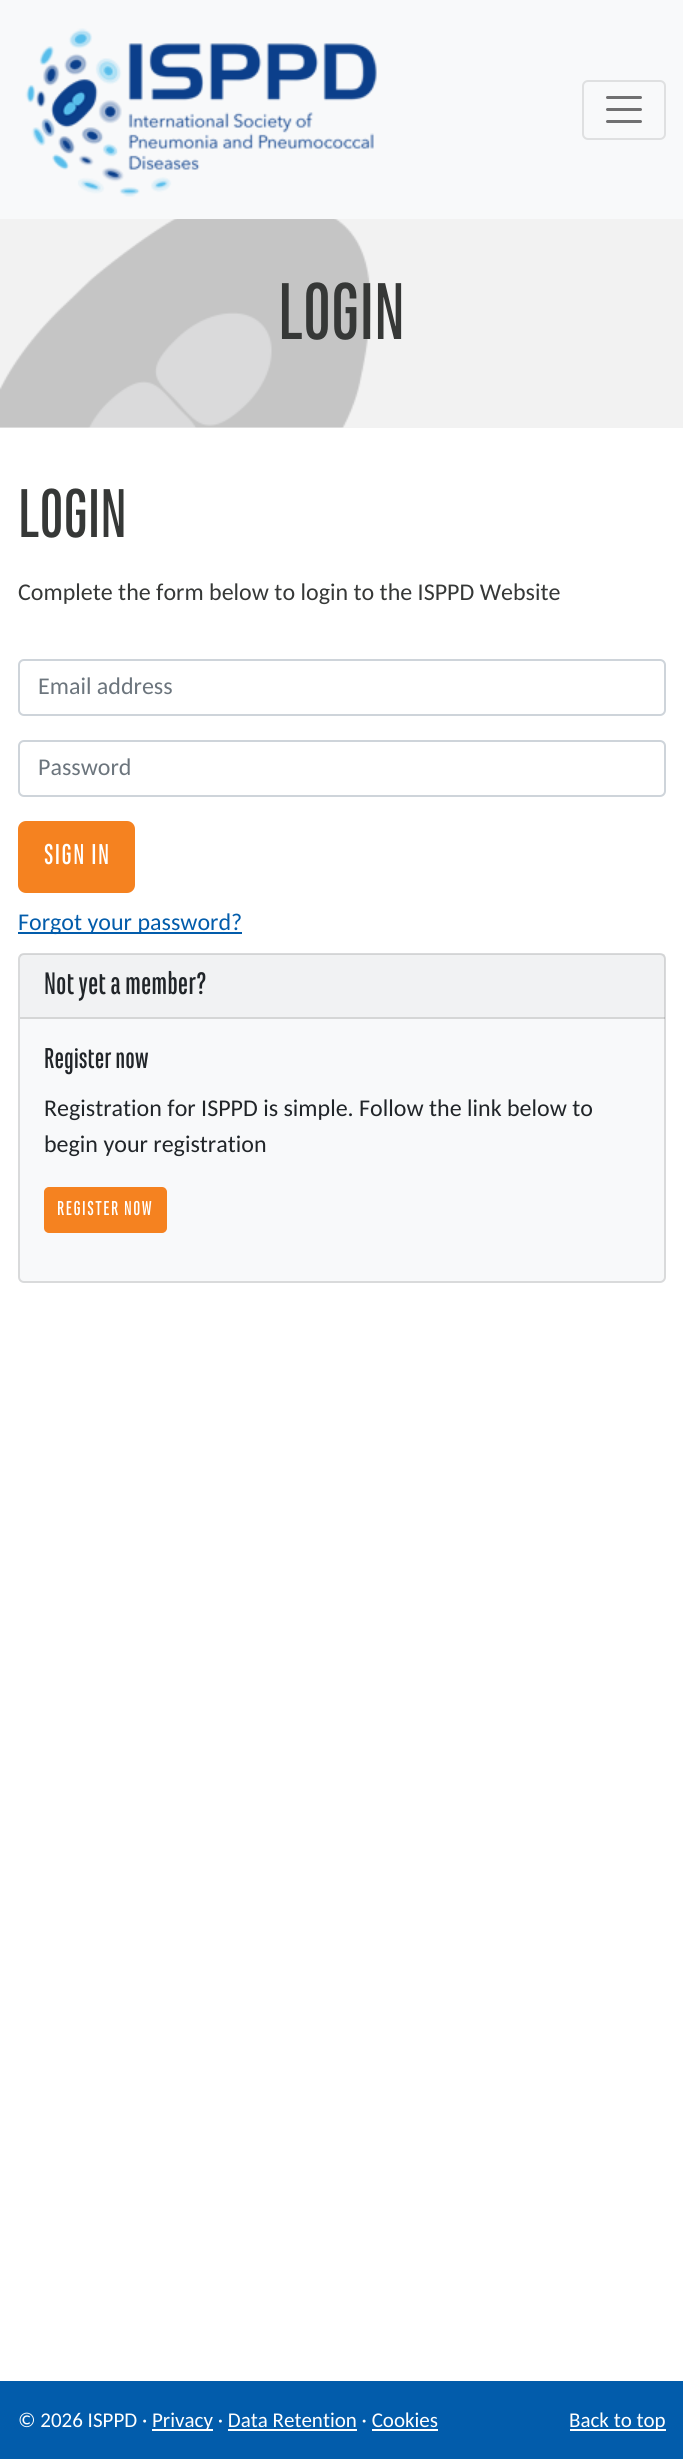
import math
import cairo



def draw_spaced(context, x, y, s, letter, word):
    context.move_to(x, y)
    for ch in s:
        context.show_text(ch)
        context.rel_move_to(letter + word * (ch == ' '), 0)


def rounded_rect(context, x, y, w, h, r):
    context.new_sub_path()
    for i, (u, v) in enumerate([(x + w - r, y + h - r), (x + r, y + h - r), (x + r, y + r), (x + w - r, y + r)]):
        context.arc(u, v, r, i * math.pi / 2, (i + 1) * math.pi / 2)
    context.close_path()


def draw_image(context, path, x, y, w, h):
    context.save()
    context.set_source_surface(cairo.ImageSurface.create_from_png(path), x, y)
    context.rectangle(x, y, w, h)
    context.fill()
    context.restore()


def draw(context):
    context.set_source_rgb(1, 1, 1)
    context.paint()
    context.set_source_rgb(248 / 255, 249 / 255, 250 / 255)
    context.rectangle(0, 0, 683, 219)
    context.fill()
    draw_image(context, "images/1.png", 25, 28, 352, 169)
    rounded_rect(context, 583, 81, 82, 58, 5)
    context.set_source_rgb(223 / 255, 224 / 255, 225 / 255)
    context.stroke()
    context.new_path()
    context.move_to(607.5, 97.5)
    context.line_to(640.5, 97.5)
    context.move_to(607.5, 109.5)
    context.line_to(640.5, 109.5)
    context.move_to(607.5, 121.5)
    context.line_to(640.5, 121.5)
    context.set_source_rgb(112 / 255, 112 / 255, 113 / 255)
    context.set_line_width(3)
    context.set_line_cap(cairo.LineCap.ROUND)
    context.stroke()
    context.set_source_rgb(242 / 255, 242 / 255, 242 / 255)
    context.rectangle(0, 219, 683, 209)
    context.fill()
    draw_image(context, "images/2.png", 0, 219, 371, 209)
    rounded_rect(context, 19, 660, 646, 55, 5)
    context.set_source_rgb(206 / 255, 212 / 255, 218 / 255)
    context.set_line_width(2)
    context.set_line_cap(cairo.LineCap.BUTT)
    context.stroke()
    rounded_rect(context, 19, 741, 646, 55, 5)
    context.stroke()
    context.set_source_rgb(245 / 255, 130 / 255, 32 / 255)
    rounded_rect(context, 19, 822, 115, 70, 7)
    context.fill_preserve()
    context.stroke()
    context.set_source_rgb(2 / 255, 92 / 255, 171 / 255)
    context.rectangle(18, 932, 224, 2)
    context.fill()
    context.set_source_rgb(248 / 255, 249 / 255, 250 / 255)
    rounded_rect(context, 19, 954, 646, 328, 5)
    context.fill_preserve()
    context.set_source_rgb(217 / 255, 218 / 255, 219 / 255)
    context.stroke()
    context.set_source_rgba(0, 0, 0, 0.03)
    context.rectangle(20, 954, 645, 65)
    context.fill()
    context.set_source_rgba(0, 0, 0, 0.12)
    context.rectangle(20, 1017, 645, 2)
    context.fill()
    context.set_source_rgb(245 / 255, 130 / 255, 32 / 255)
    rounded_rect(context, 45, 1188, 121, 44, 4)
    context.fill_preserve()
    context.stroke()
    context.set_source_rgb(2 / 255, 92 / 255, 171 / 255)
    context.rectangle(0, 2381, 683, 78)
    context.fill()
    context.set_source_rgb(1, 1, 1)
    context.rectangle(152, 2429, 61, 2)
    context.fill()
    context.rectangle(228, 2429, 129, 2)
    context.fill()
    context.rectangle(372, 2429, 66, 2)
    context.fill()
    context.rectangle(570, 2429, 96, 2)
    context.fill()
    context.select_font_face("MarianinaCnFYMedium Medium")
    context.set_font_size(84)
    context.set_source_rgb(54 / 255, 56 / 255, 55 / 255)
    context.move_to(278, 339)
    context.show_text("LOGIN")
    context.set_font_size(72)
    context.move_to(18, 537)
    context.show_text("LOGIN")
    context.select_font_face("Carlito")
    context.set_font_size(24)
    context.move_to(18, 600)
    context.show_text("Complete the form below to login to the ISPPD Website")
    context.set_source_rgb(108 / 255, 117 / 255, 125 / 255)
    context.move_to(38, 694)
    context.show_text("Email address")
    context.move_to(38, 775)
    context.show_text("Password")
    context.select_font_face("MarianinaCnFYMedium Medium")
    context.set_font_size(30)
    context.set_source_rgb(1, 1, 1)
    draw_spaced(context, 44, 864, "SIGN IN", 1.5, 0)
    context.select_font_face("Carlito")
    context.set_font_size(24)
    context.set_source_rgb(2 / 255, 92 / 255, 171 / 255)
    context.move_to(18, 930)
    context.show_text("Forgot your password?")
    context.select_font_face("MarianinaCnFYMedium Medium")
    context.set_font_size(32.5)
    context.set_source_rgb(33 / 255, 37 / 255, 41 / 255)
    context.move_to(44, 994)
    context.show_text("Not yet a member?")
    context.set_font_size(30)
    context.move_to(44, 1068)
    context.show_text("Register now")
    context.select_font_face("Carlito")
    context.set_font_size(24)
    context.move_to(44, 1116)
    context.show_text("Registration for ISPPD is simple. Follow the link below to")
    context.move_to(44, 1152)
    context.show_text("begin your registration")
    context.select_font_face("MarianinaCnFYMedium Medium")
    context.set_font_size(21)
    context.set_source_rgb(1, 1, 1)
    draw_spaced(context, 57, 1215, "REGISTER NOW", 1.5, 0)
    context.select_font_face("Carlito")
    context.move_to(18, 2427)
    context.show_text("© 2026 ISPPD ·")
    context.move_to(152, 2427)
    context.show_text("Privacy · Data Retention · Cookies")
    context.move_to(569, 2427)
    context.show_text("Back to top")


surface = cairo.ImageSurface(cairo.Format.RGB24, 683, 2459)
context = cairo.Context(surface)
options = cairo.FontOptions()
options.set_hint_metrics(cairo.HintMetrics.OFF)
options.set_hint_style(cairo.HintStyle.NONE)
context.set_font_options(options)
context.set_miter_limit(4)
draw(context)
surface.write_to_png("out.png")
